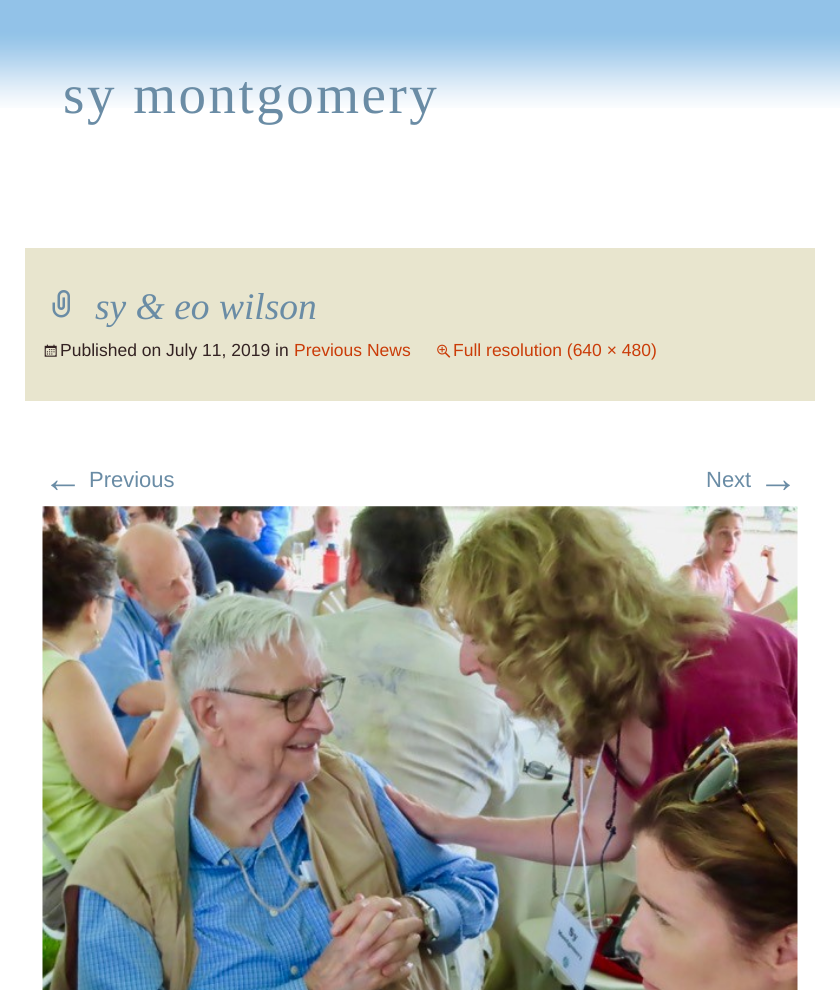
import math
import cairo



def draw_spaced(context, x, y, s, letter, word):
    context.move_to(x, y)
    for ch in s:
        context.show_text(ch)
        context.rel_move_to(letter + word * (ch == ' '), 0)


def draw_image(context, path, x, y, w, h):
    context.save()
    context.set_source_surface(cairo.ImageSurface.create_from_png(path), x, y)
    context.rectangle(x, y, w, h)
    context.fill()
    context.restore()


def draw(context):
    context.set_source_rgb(1, 1, 1)
    context.paint()
    draw_image(context, "images/1.png", 0, 0, 840, 108)
    context.set_source_rgb(232 / 255, 229 / 255, 206 / 255)
    context.rectangle(25, 248, 790, 153)
    context.fill()
    draw_image(context, "images/2.png", 52, 290, 18, 28)
    draw_image(context, "images/3.png", 44, 344, 13, 13)
    draw_image(context, "images/4.png", 437, 344, 14, 14)
    draw_image(context, "images/5.png", 42, 506, 756, 484)
    context.select_font_face("Liberation Serif")
    context.set_font_size(55)
    context.set_source_rgb(106 / 255, 140 / 255, 165 / 255)
    draw_spaced(context, 63, 113, "sy montgomery", 2.5, 0)
    context.select_font_face("Liberation Serif", cairo.FontSlant.ITALIC)
    context.set_font_size(37.5)
    context.move_to(95, 319)
    context.show_text("sy & eo wilson")
    context.select_font_face("Liberation Sans")
    context.set_font_size(17.5)
    context.set_source_rgb(51 / 255, 34 / 255, 34 / 255)
    context.move_to(60, 356)
    context.show_text("Published on July 11, 2019 in")
    context.set_source_rgb(202 / 255, 60 / 255, 8 / 255)
    context.move_to(294, 356)
    context.show_text("Previous News")
    context.move_to(453, 356)
    context.show_text("Full resolution (640 × 480)")
    context.set_font_size(40)
    context.set_source_rgb(106 / 255, 140 / 255, 165 / 255)
    context.move_to(43, 492)
    context.show_text("←")
    context.set_font_size(22)
    context.move_to(89, 487)
    context.show_text("Previous")
    context.move_to(706, 487)
    context.show_text("Next")
    context.set_font_size(40)
    context.move_to(758, 492)
    context.show_text("→")


surface = cairo.ImageSurface(cairo.Format.RGB24, 840, 990)
context = cairo.Context(surface)
options = cairo.FontOptions()
options.set_hint_metrics(cairo.HintMetrics.OFF)
options.set_hint_style(cairo.HintStyle.NONE)
context.set_font_options(options)
context.set_miter_limit(4)
draw(context)
surface.write_to_png("out.png")
